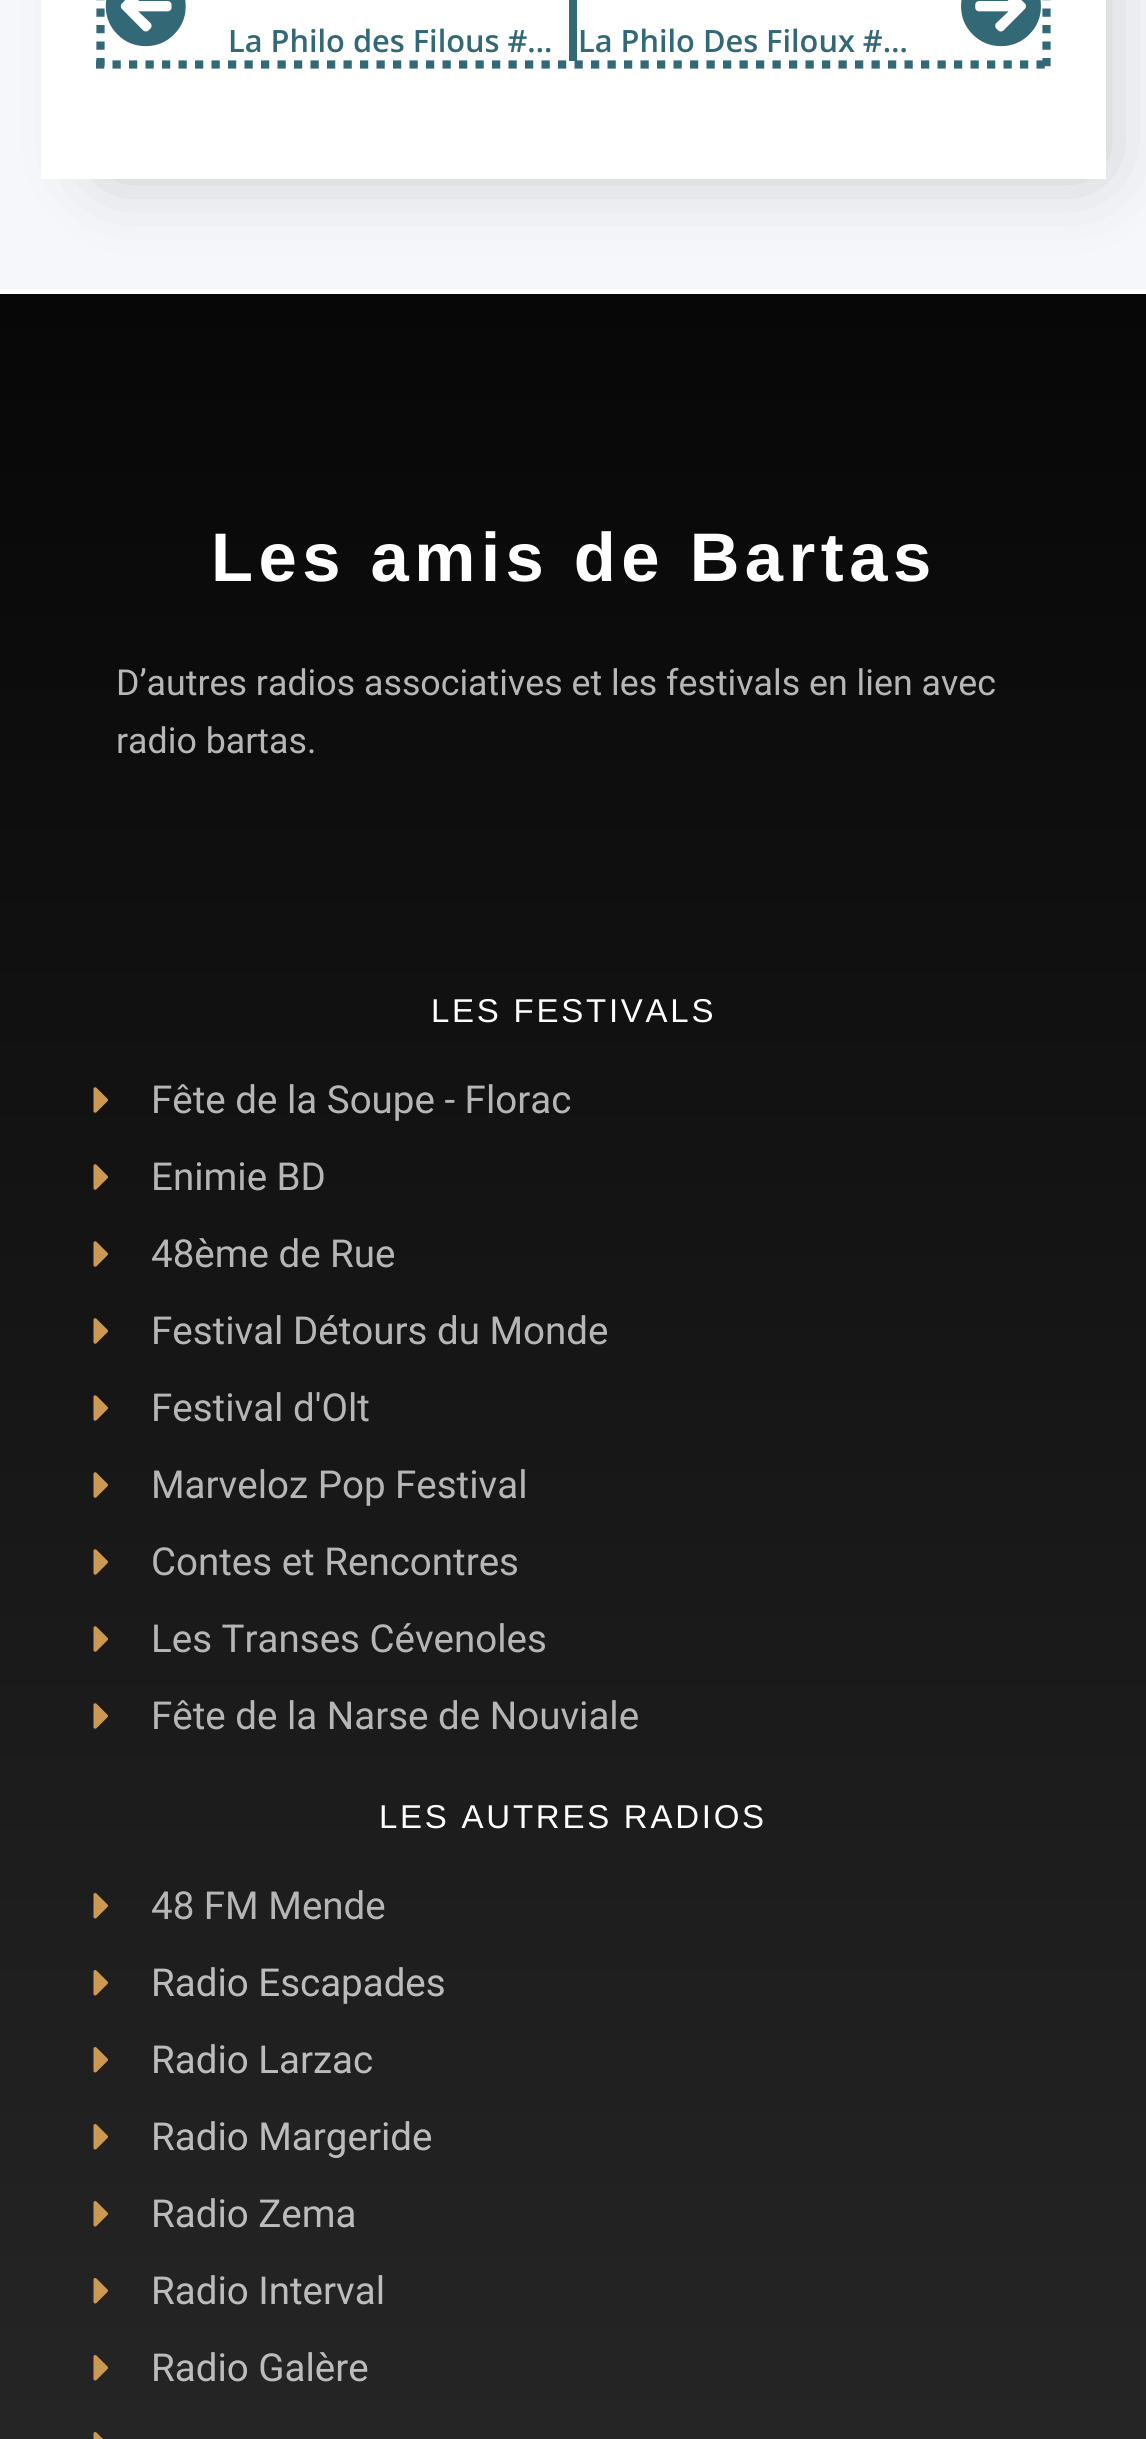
import math
import cairo



def draw_spaced(context, x, y, s, letter, word):
    context.move_to(x, y)
    for ch in s:
        context.show_text(ch)
        context.rel_move_to(letter + word * (ch == ' '), 0)


def rounded_rect(context, x, y, w, h, r):
    context.new_sub_path()
    for i, (u, v) in enumerate([(x + w - r, y + h - r), (x + r, y + h - r), (x + r, y + r), (x + w - r, y + r)]):
        context.arc(u, v, r, i * math.pi / 2, (i + 1) * math.pi / 2)
    context.close_path()


def draw_shadow(context, x, y, w, h, r, blur, alpha):
    context.push_group_with_content(cairo.Content.ALPHA)
    context.set_operator(cairo.Operator.SOURCE)
    for i in range(15, -16, -2):
        e = blur * i / 6
        if min(w, h) + 2 * e > 0:
            context.set_source_rgba(0, 0, 0, alpha * math.erfc((i - 1) / 8.5) / 2)
            rounded_rect(context, x - e, y - e, w + 2 * e, h + 2 * e, max(0, min(r + e + blur * .6, min(w, h) / 2 + e)))
            context.fill()
    context.mask(context.pop_group())


def draw_image(context, path, x, y, w, h):
    context.save()
    context.set_source_surface(cairo.ImageSurface.create_from_png(path), x, y)
    context.rectangle(x, y, w, h)
    context.fill()
    context.restore()


def draw(context):
    context.set_source_rgb(1, 1, 1)
    context.paint()
    context.set_source_rgb(245 / 255, 247 / 255, 250 / 255)
    context.rectangle(0, 0, 1146, 289)
    context.fill()
    context.set_source_rgb(155 / 255, 155 / 255, 155 / 255)
    draw_shadow(context, 110, -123, 982, 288, 0, 41, 0.67)
    context.set_source_rgb(1, 1, 1)
    context.rectangle(41, 0, 1065, 179)
    context.fill()
    context.new_path()
    context.move_to(1046.5, -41)
    context.line_to(1046.5, 69)
    context.set_source_rgb(51 / 255, 104 / 255, 118 / 255)
    context.set_line_width(8.2)
    context.set_dash([8.25, 8.25])
    context.stroke()
    context.new_path()
    context.move_to(96, 64.5)
    context.line_to(1050.5, 64.5)
    context.stroke()
    context.new_path()
    context.move_to(100.5, -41)
    context.line_to(100.5, 69)
    context.stroke()
    draw_image(context, "images/1.png", 105, 0, 81, 47)
    context.rectangle(569, 0, 8, 61)
    context.fill()
    draw_image(context, "images/2.png", 961, 0, 80, 47)
    gradient = cairo.LinearGradient(573, 294, 573, 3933)
    gradient.add_color_stop_rgba(0, 7 / 255, 7 / 255, 7 / 255, 1)
    gradient.add_color_stop_rgba(1, 58 / 255, 58 / 255, 58 / 255, 1)
    context.set_source(gradient)
    context.rectangle(0, 294, 1146, 2145)
    context.fill()
    draw_image(context, "images/3.png", 93, 1087, 15, 26)
    draw_image(context, "images/4.png", 93, 1164, 15, 26)
    draw_image(context, "images/5.png", 93, 1241, 15, 26)
    draw_image(context, "images/6.png", 93, 1318, 15, 26)
    draw_image(context, "images/7.png", 93, 1395, 15, 26)
    draw_image(context, "images/8.png", 93, 1472, 15, 26)
    draw_image(context, "images/9.png", 93, 1549, 15, 26)
    draw_image(context, "images/10.png", 93, 1626, 15, 26)
    draw_image(context, "images/11.png", 93, 1703, 15, 26)
    draw_image(context, "images/12.png", 93, 1893, 15, 26)
    draw_image(context, "images/13.png", 93, 1970, 15, 26)
    draw_image(context, "images/14.png", 93, 2047, 15, 26)
    draw_image(context, "images/15.png", 93, 2124, 15, 26)
    draw_image(context, "images/16.png", 93, 2201, 15, 26)
    draw_image(context, "images/17.png", 93, 2278, 15, 26)
    draw_image(context, "images/18.png", 93, 2355, 15, 26)
    draw_image(context, "images/19.png", 93, 2432, 10, 7)
    context.select_font_face("Open Sans SemiBold")
    context.set_font_size(30.75)
    context.set_source_rgb(51 / 255, 104 / 255, 118 / 255)
    context.move_to(228, 52)
    context.show_text("La Philo des Filous #…")
    context.move_to(578, 52)
    context.show_text("La Philo Des Filoux #…")
    context.select_font_face("Liberation Sans", cairo.FontSlant.NORMAL, cairo.FontWeight.BOLD)
    context.set_font_size(68.75)
    context.set_source_rgb(1, 1, 1)
    draw_spaced(context, 211, 581, "Les amis de Bartas", 5.5, 0)
    context.select_font_face("Roboto")
    context.set_font_size(35.75)
    context.set_source_rgb(182 / 255, 182 / 255, 182 / 255)
    context.move_to(116, 695)
    context.show_text("D’autres radios associatives et les festivals en lien avec")
    context.move_to(116, 753)
    context.show_text("radio bartas.")
    context.select_font_face("Liberation Sans")
    context.set_font_size(33)
    context.set_source_rgb(1, 1, 1)
    draw_spaced(context, 431, 1022, "LES FESTIVALS", 2.75, 0)
    context.select_font_face("Roboto")
    context.set_font_size(38.5)
    context.set_source_rgb(182 / 255, 182 / 255, 182 / 255)
    context.move_to(151, 1113)
    context.show_text("Fête de la Soupe - Florac")
    context.move_to(151, 1190)
    context.show_text("Enimie BD")
    context.move_to(151, 1267)
    context.show_text("48ème de Rue")
    context.move_to(151, 1344)
    context.show_text("Festival Détours du Monde")
    context.move_to(151, 1421)
    context.show_text("Festival d'Olt")
    context.move_to(151, 1498)
    context.show_text("Marveloz Pop Festival")
    context.move_to(151, 1575)
    context.show_text("Contes et Rencontres")
    context.move_to(151, 1652)
    context.show_text("Les Transes Cévenoles")
    context.move_to(151, 1729)
    context.show_text("Fête de la Narse de Nouviale")
    context.select_font_face("Liberation Sans")
    context.set_font_size(33)
    context.set_source_rgb(1, 1, 1)
    draw_spaced(context, 379, 1828, "LES AUTRES RADIOS", 2.75, 0)
    context.select_font_face("Roboto")
    context.set_font_size(38.5)
    context.set_source_rgb(182 / 255, 182 / 255, 182 / 255)
    context.move_to(151, 1919)
    context.show_text("48 FM Mende")
    context.set_source_rgb(188 / 255, 188 / 255, 188 / 255)
    context.move_to(151, 1996)
    context.show_text("Radio Escapades")
    context.move_to(151, 2073)
    context.show_text("Radio Larzac")
    context.move_to(151, 2150)
    context.show_text("Radio Margeride")
    context.move_to(151, 2227)
    context.show_text("Radio Zema")
    context.move_to(151, 2304)
    context.show_text("Radio Interval")
    context.move_to(151, 2381)
    context.show_text("Radio Galère")


surface = cairo.ImageSurface(cairo.Format.RGB24, 1146, 2439)
context = cairo.Context(surface)
options = cairo.FontOptions()
options.set_hint_metrics(cairo.HintMetrics.OFF)
options.set_hint_style(cairo.HintStyle.NONE)
context.set_font_options(options)
context.set_miter_limit(4)
draw(context)
surface.write_to_png("out.png")
